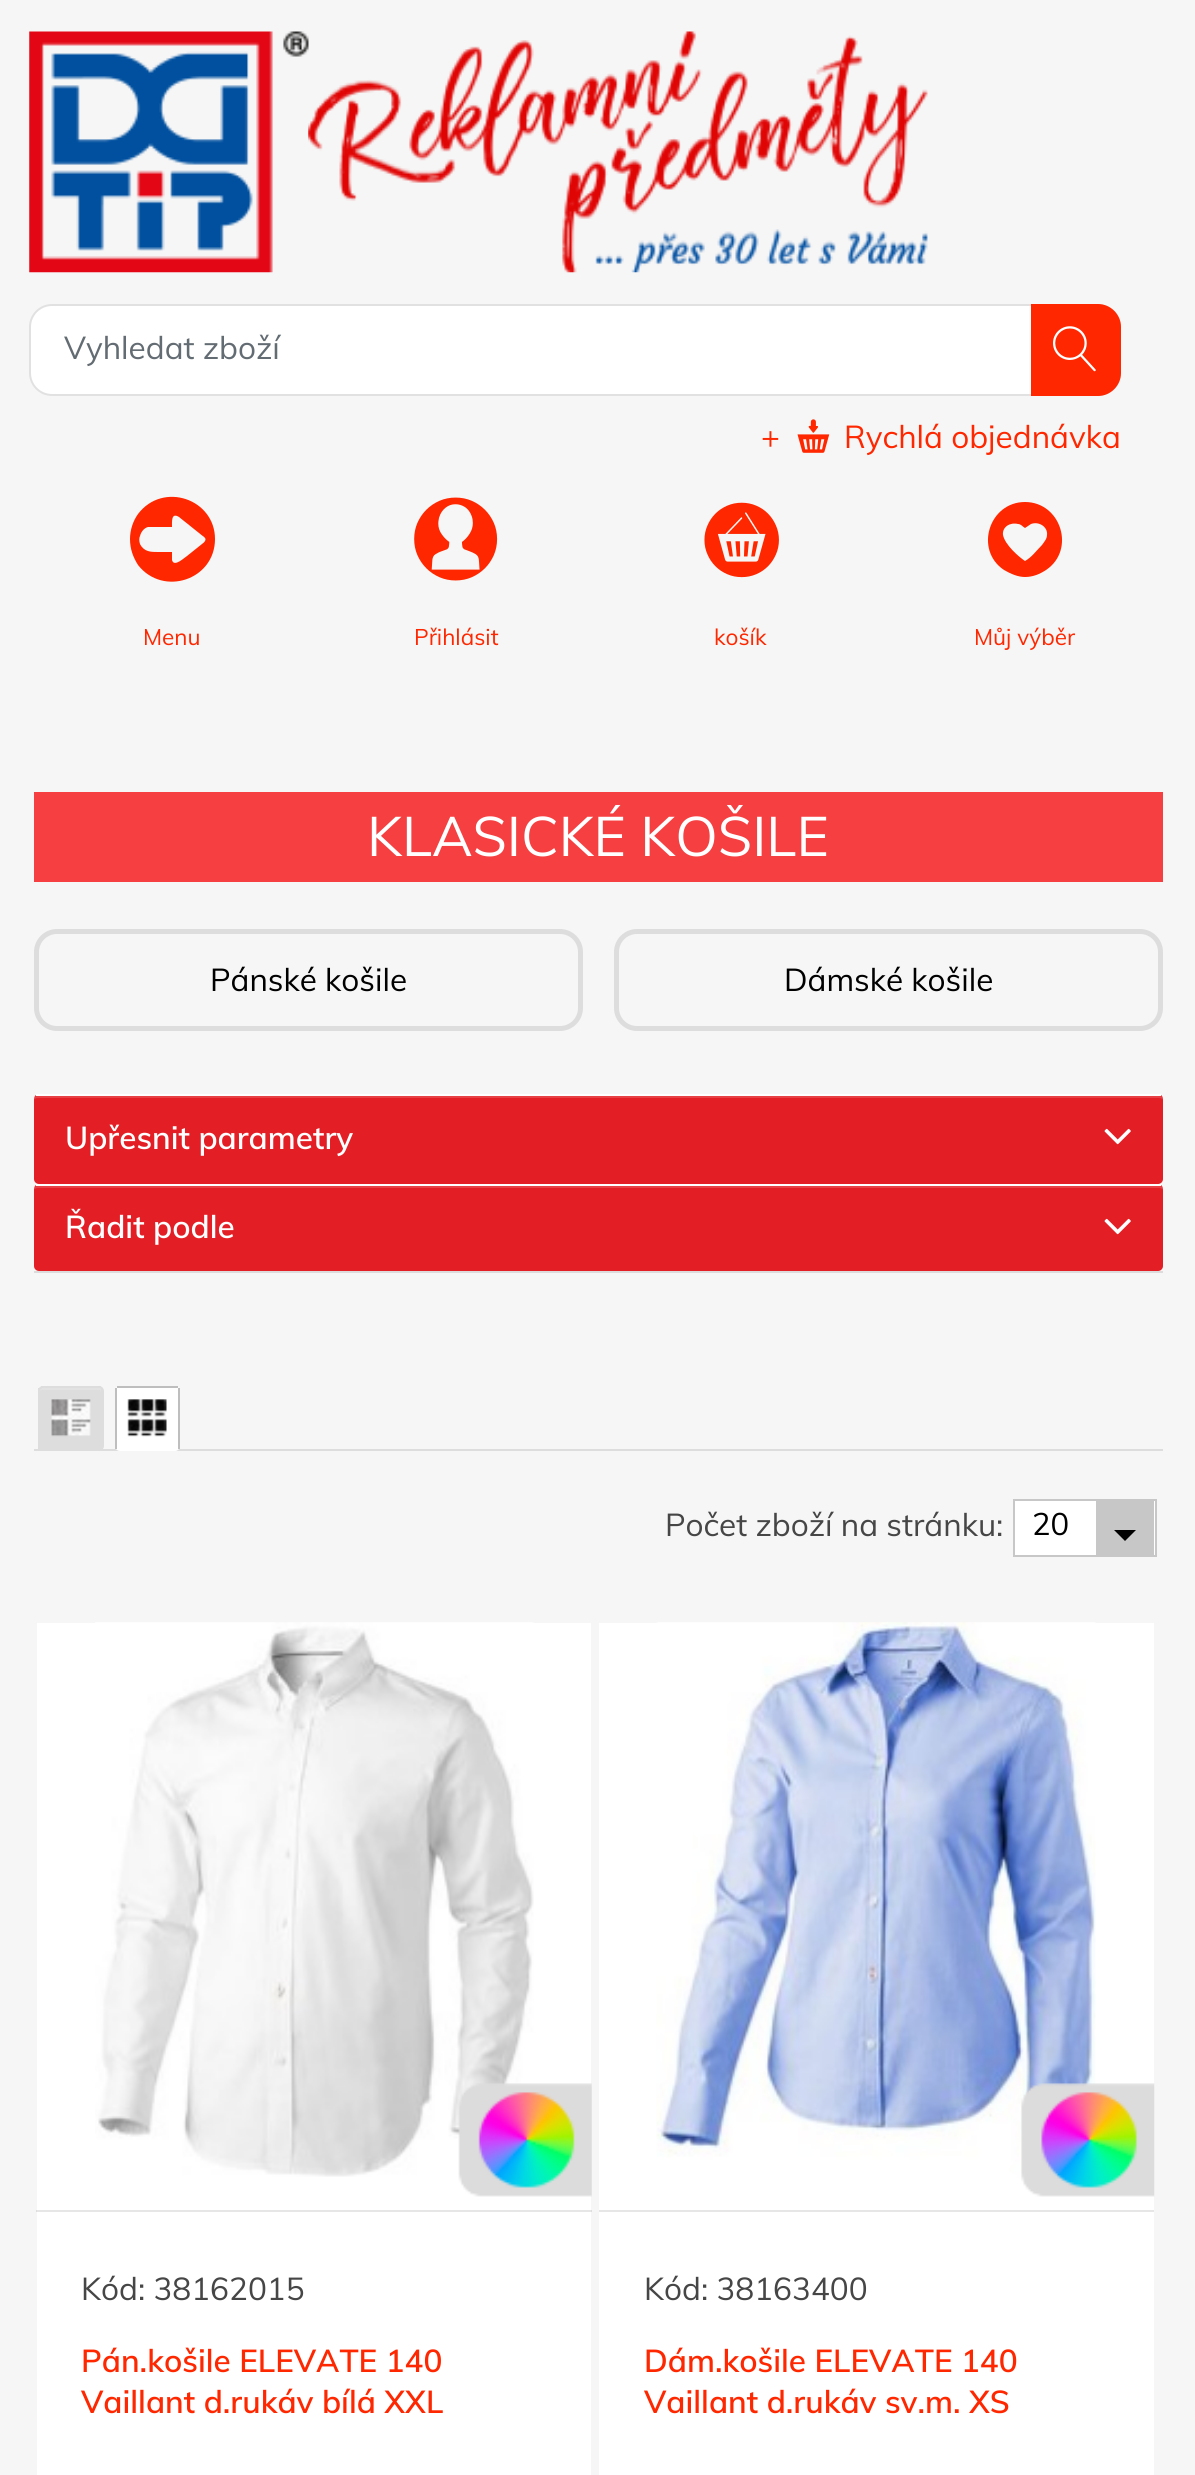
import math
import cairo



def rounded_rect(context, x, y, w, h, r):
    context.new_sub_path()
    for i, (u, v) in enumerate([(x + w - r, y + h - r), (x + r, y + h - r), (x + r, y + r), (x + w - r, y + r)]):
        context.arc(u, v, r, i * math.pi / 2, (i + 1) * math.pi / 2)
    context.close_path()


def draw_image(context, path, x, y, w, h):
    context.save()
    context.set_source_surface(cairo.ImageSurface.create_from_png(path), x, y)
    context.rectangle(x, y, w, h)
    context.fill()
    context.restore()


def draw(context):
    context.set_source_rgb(246 / 255, 246 / 255, 246 / 255)
    context.paint()
    draw_image(context, "images/1.png", 29, 31, 280, 242)
    draw_image(context, "images/2.png", 308, 31, 620, 242)
    context.set_source_rgb(1, 1, 1)
    rounded_rect(context, 29, 304, 1092, 92, 23)
    context.fill()
    rounded_rect(context, 30, 305, 1090, 90, 22)
    context.set_source_rgba(0, 0, 0, 0.12)
    context.stroke()
    context.set_source_rgb(1, 39 / 255, 0)
    context.new_path()
    context.move_to(1032, 305)
    context.line_to(1098, 305)
    context.curve_to(1110, 305, 1120, 315, 1120, 327)
    context.line_to(1120, 373)
    context.curve_to(1120, 385, 1110, 395, 1098, 395)
    context.line_to(1032, 395)
    context.close_path()
    context.fill_preserve()
    context.stroke()
    draw_image(context, "images/3.png", 1053, 326, 43, 46)
    draw_image(context, "images/4.png", 797, 419, 33, 34)
    context.new_path()
    context.move_to(130, 539)
    context.curve_to(130, 549, 133, 557, 138, 565)
    context.curve_to(163, 597, 215, 580, 215, 539)
    context.curve_to(215, 499, 163, 481, 138, 514)
    context.curve_to(133, 521, 130, 530, 130, 539)
    context.close_path()
    context.move_to(179, 517)
    context.line_to(204, 537)
    context.curve_to(207, 539, 205, 542, 202, 544)
    context.line_to(187, 556)
    context.curve_to(185, 557, 174, 568, 172, 560)
    context.line_to(172, 552)
    context.line_to(158, 552)
    context.curve_to(151, 552, 144, 552, 140, 544)
    context.curve_to(139, 541, 139, 538, 140, 536)
    context.curve_to(141, 532, 144, 528, 148, 527)
    context.line_to(172, 527)
    context.curve_to(172, 522, 171, 512, 179, 517)
    context.close_path()
    context.fill()
    draw_image(context, "images/5.png", 414, 497, 84, 84)
    draw_image(context, "images/6.png", 704, 502, 75, 76)
    context.new_path()
    context.move_to(1025, 502)
    context.curve_to(989, 502, 974, 550, 1004, 570)
    context.curve_to(1011, 574, 1018, 577, 1025, 577)
    context.curve_to(1033, 577, 1040, 574, 1046, 570)
    context.curve_to(1076, 550, 1061, 502, 1025, 502)
    context.close_path()
    context.move_to(1042, 545)
    context.curve_to(1036, 551, 1032, 557, 1025, 561)
    context.curve_to(1019, 557, 1005, 545, 1003, 535)
    context.curve_to(1002, 527, 1010, 522, 1018, 524)
    context.curve_to(1021, 524, 1023, 527, 1025, 528)
    context.line_to(1031, 524)
    context.curve_to(1039, 521, 1048, 527, 1047, 535)
    context.curve_to(1047, 539, 1044, 542, 1042, 545)
    context.close_path()
    context.fill()
    context.set_source_rgb(246 / 255, 63 / 255, 65 / 255)
    context.rectangle(34, 792, 1129, 90)
    context.fill()
    rounded_rect(context, 36.5, 931.5, 544, 97, 20.5)
    context.set_source_rgb(221 / 255, 221 / 255, 221 / 255)
    context.set_line_width(5)
    context.stroke()
    rounded_rect(context, 616.5, 931.5, 544, 97, 20.5)
    context.stroke()
    context.set_source_rgb(227 / 255, 30 / 255, 37 / 255)
    rounded_rect(context, 34, 1094, 1129, 90, 5)
    context.fill()
    context.set_source_rgba(1, 1, 1, 0.15)
    context.new_path()
    context.move_to(38, 1098)
    context.line_to(1159, 1098)
    context.curve_to(1161, 1098, 1163, 1099, 1163, 1100)
    context.line_to(1163, 1181)
    context.line_to(1163, 1097)
    context.curve_to(1163, 1097, 1161, 1096, 1159, 1096)
    context.line_to(38, 1096)
    context.curve_to(36, 1096, 34, 1097, 34, 1097)
    context.line_to(34, 1181)
    context.line_to(34, 1100)
    context.curve_to(34, 1099, 36, 1098, 38, 1098)
    context.close_path()
    context.fill()
    context.set_source_rgb(1, 1, 1)
    context.rectangle(36, 1094, 1125, 2)
    context.fill()
    draw_image(context, "images/7.png", 1104, 1128, 27, 17)
    context.set_source_rgb(227 / 255, 30 / 255, 37 / 255)
    rounded_rect(context, 34, 1184, 1129, 87, 5)
    context.fill()
    context.set_source_rgba(1, 1, 1, 0.15)
    context.new_path()
    context.move_to(38, 1188)
    context.line_to(1159, 1188)
    context.curve_to(1161, 1188, 1163, 1189, 1163, 1190)
    context.line_to(1163, 1269)
    context.line_to(1163, 1187)
    context.curve_to(1163, 1187, 1161, 1186, 1159, 1186)
    context.line_to(38, 1186)
    context.curve_to(36, 1186, 34, 1187, 34, 1187)
    context.line_to(34, 1269)
    context.line_to(34, 1190)
    context.curve_to(34, 1189, 36, 1188, 38, 1188)
    context.close_path()
    context.fill()
    context.set_source_rgb(1, 1, 1)
    context.rectangle(36, 1184, 1125, 2)
    context.fill()
    draw_image(context, "images/7.png", 1104, 1218, 27, 17)
    context.set_source_rgb(221 / 255, 219 / 255, 220 / 255)
    context.rectangle(34, 1271, 1129, 2)
    context.fill()
    context.set_source_rgb(221 / 255, 221 / 255, 221 / 255)
    context.rectangle(34, 1449, 1129, 2)
    context.fill()
    rounded_rect(context, 38, 1386, 66, 65, 5)
    context.fill()
    context.set_source_rgb(226 / 255, 226 / 255, 226 / 255)
    context.new_path()
    context.move_to(42, 1390)
    context.line_to(100, 1390)
    context.line_to(101, 1392)
    context.line_to(101, 1449)
    context.line_to(101, 1389)
    context.line_to(100, 1388)
    context.line_to(42, 1388)
    context.line_to(41, 1389)
    context.line_to(40, 1391)
    context.close_path()
    context.fill()
    context.set_source_rgb(221 / 255, 221 / 255, 221 / 255)
    context.rectangle(41, 1386, 60, 1)
    context.fill()
    context.rectangle(38, 1388, 1, 61)
    context.fill()
    draw_image(context, "images/8.png", 51, 1399, 40, 38)
    context.set_source_rgb(1, 1, 1)
    rounded_rect(context, 115, 1386, 65, 65, 5)
    context.fill()
    context.set_source_rgb(190 / 255, 190 / 255, 190 / 255)
    context.rectangle(117, 1386, 61, 2)
    context.fill()
    context.rectangle(178, 1388, 2, 61)
    context.fill()
    context.rectangle(115, 1388, 2, 61)
    context.fill()
    draw_image(context, "images/9.png", 127, 1399, 40, 38)
    context.set_source_rgb(1, 1, 1)
    context.rectangle(1014, 1500, 142, 56)
    context.fill_preserve()
    context.set_source_rgb(199 / 255, 199 / 255, 199 / 255)
    context.set_line_width(2)
    context.stroke()
    context.rectangle(1096, 1501, 58, 54)
    context.fill()
    context.set_source_rgb(0, 0, 0)
    context.new_path()
    context.move_to(1114, 1530)
    context.line_to(1136, 1530)
    context.line_to(1125, 1541)
    context.close_path()
    context.fill()
    context.set_source_rgb(1, 1, 1)
    context.rectangle(37, 1623, 554, 852)
    context.fill()
    draw_image(context, "images/10.png", 95, 1622, 439, 555)
    draw_image(context, "images/11.png", 458, 2083, 134, 114)
    context.set_source_rgba(0, 0, 0, 0.1)
    context.rectangle(36, 2210, 556, 2)
    context.fill()
    context.set_source_rgb(1, 1, 1)
    context.rectangle(599, 1623, 555, 852)
    context.fill()
    draw_image(context, "images/12.png", 656, 1622, 440, 557)
    draw_image(context, "images/13.png", 1021, 2083, 134, 114)
    context.set_source_rgb(230 / 255, 230 / 255, 230 / 255)
    context.rectangle(599, 2210, 555, 2)
    context.fill()
    context.select_font_face("Muli")
    context.set_font_size(31.5)
    context.set_source_rgb(99 / 255, 108 / 255, 114 / 255)
    context.move_to(64, 359)
    context.show_text("Vyhledat zboží")
    context.set_source_rgb(1, 39 / 255, 0)
    context.move_to(761, 448)
    context.show_text("+")
    context.move_to(844, 448)
    context.show_text("Rychlá objednávka")
    context.set_font_size(22.5)
    context.move_to(143, 645)
    context.show_text("Menu")
    context.move_to(414, 645)
    context.show_text("Přihlásit")
    context.move_to(714, 645)
    context.show_text("košík")
    context.move_to(974, 645)
    context.show_text("Můj výběr")
    context.set_font_size(55.1)
    context.set_source_rgb(1, 1, 1)
    context.move_to(367, 856)
    context.show_text("KLASICKÉ KOŠILE")
    context.set_font_size(31.5)
    context.set_source_rgb(0, 0, 0)
    context.move_to(210, 991)
    context.show_text("Pánské košile")
    context.move_to(784, 991)
    context.show_text("Dámské košile")
    context.select_font_face("Muli SemiBold")
    context.set_source_rgb(1, 1, 1)
    context.move_to(65, 1149)
    context.show_text("Upřesnit parametry")
    context.move_to(65, 1238)
    context.show_text("Řadit podle")
    context.select_font_face("Muli")
    context.set_source_rgb(70 / 255, 70 / 255, 70 / 255)
    context.move_to(665, 1536)
    context.show_text("Počet zboží na stránku:")
    context.set_font_size(31)
    context.set_source_rgb(0, 0, 0)
    context.move_to(1032, 1535)
    context.show_text("20")
    context.set_font_size(31.5)
    context.set_source_rgb(70 / 255, 70 / 255, 70 / 255)
    context.move_to(81, 2300)
    context.show_text("Kód: 38162015")
    context.select_font_face("Muli SemiBold")
    context.set_source_rgb(1, 39 / 255, 0)
    context.move_to(81, 2372)
    context.show_text("Pán.košile ELEVATE 140")
    context.move_to(81, 2413)
    context.show_text("Vaillant d.rukáv bílá XXL")
    context.select_font_face("Muli")
    context.set_source_rgb(70 / 255, 70 / 255, 70 / 255)
    context.move_to(644, 2300)
    context.show_text("Kód: 38163400")
    context.select_font_face("Muli SemiBold")
    context.set_source_rgb(1, 39 / 255, 0)
    context.move_to(644, 2372)
    context.show_text("Dám.košile ELEVATE 140")
    context.move_to(644, 2413)
    context.show_text("Vaillant d.rukáv sv.m. XS")


surface = cairo.ImageSurface(cairo.Format.RGB24, 1195, 2475)
context = cairo.Context(surface)
options = cairo.FontOptions()
options.set_hint_metrics(cairo.HintMetrics.OFF)
options.set_hint_style(cairo.HintStyle.NONE)
context.set_font_options(options)
context.set_miter_limit(4)
draw(context)
surface.write_to_png("out.png")
